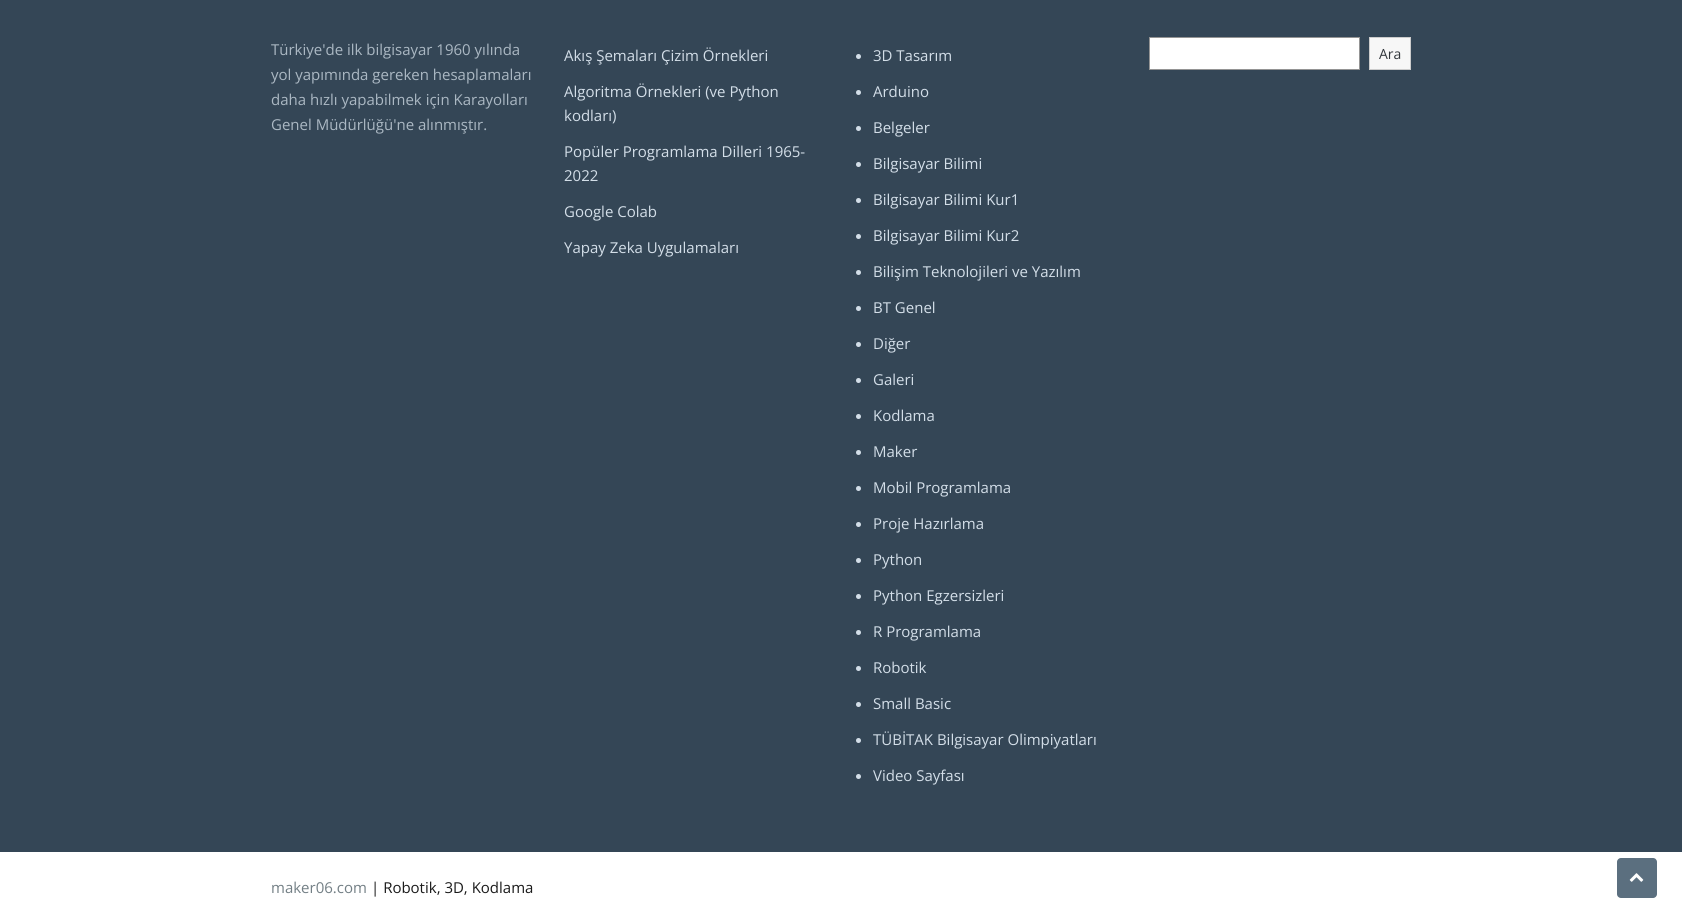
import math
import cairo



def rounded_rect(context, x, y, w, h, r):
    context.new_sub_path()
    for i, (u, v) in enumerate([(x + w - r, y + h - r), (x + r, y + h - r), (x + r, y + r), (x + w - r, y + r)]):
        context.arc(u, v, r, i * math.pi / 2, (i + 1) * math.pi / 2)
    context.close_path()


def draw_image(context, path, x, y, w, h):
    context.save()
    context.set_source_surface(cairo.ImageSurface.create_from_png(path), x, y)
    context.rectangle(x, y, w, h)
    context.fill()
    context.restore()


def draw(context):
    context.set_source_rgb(52 / 255, 70 / 255, 86 / 255)
    context.paint()
    context.set_source_rgb(211 / 255, 222 / 255, 232 / 255)
    context.arc(858.5, 56.5, 2.5, 0, 2 * math.pi)
    context.fill()
    context.arc(858.5, 92.5, 2.5, 0, 2 * math.pi)
    context.fill()
    context.arc(858.5, 128.5, 2.5, 0, 2 * math.pi)
    context.fill()
    context.arc(858.5, 164.5, 2.5, 0, 2 * math.pi)
    context.fill()
    context.arc(858.5, 200.5, 2.5, 0, 2 * math.pi)
    context.fill()
    context.arc(858.5, 236.5, 2.5, 0, 2 * math.pi)
    context.fill()
    context.arc(858.5, 272.5, 2.5, 0, 2 * math.pi)
    context.fill()
    context.arc(858.5, 308.5, 2.5, 0, 2 * math.pi)
    context.fill()
    context.arc(858.5, 344.5, 2.5, 0, 2 * math.pi)
    context.fill()
    context.arc(858.5, 380.5, 2.5, 0, 2 * math.pi)
    context.fill()
    context.arc(858.5, 416.5, 2.5, 0, 2 * math.pi)
    context.fill()
    context.arc(858.5, 452.5, 2.5, 0, 2 * math.pi)
    context.fill()
    context.arc(858.5, 488.5, 2.5, 0, 2 * math.pi)
    context.fill()
    context.arc(858.5, 524.5, 2.5, 0, 2 * math.pi)
    context.fill()
    context.arc(858.5, 560.5, 2.5, 0, 2 * math.pi)
    context.fill()
    context.arc(858.5, 596.5, 2.5, 0, 2 * math.pi)
    context.fill()
    context.arc(858.5, 632.5, 2.5, 0, 2 * math.pi)
    context.fill()
    context.arc(858.5, 668.5, 2.5, 0, 2 * math.pi)
    context.fill()
    context.arc(858.5, 704.5, 2.5, 0, 2 * math.pi)
    context.fill()
    context.arc(858.5, 740.5, 2.5, 0, 2 * math.pi)
    context.fill()
    context.arc(858.5, 776.5, 2.5, 0, 2 * math.pi)
    context.fill()
    context.set_source_rgb(1, 1, 1)
    context.rectangle(1149.5, 37.5, 210, 32)
    context.fill_preserve()
    context.set_source_rgb(148 / 255, 148 / 255, 148 / 255)
    context.set_line_width(1)
    context.stroke()
    context.set_source_rgb(247 / 255, 247 / 255, 247 / 255)
    context.rectangle(1369.5, 37.5, 41, 32)
    context.fill_preserve()
    context.set_source_rgb(204 / 255, 204 / 255, 204 / 255)
    context.stroke()
    context.set_source_rgb(1, 1, 1)
    context.rectangle(0, 852, 1682, 71)
    context.fill()
    context.set_source_rgb(91 / 255, 111 / 255, 127 / 255)
    rounded_rect(context, 1617, 858, 40, 40, 4)
    context.fill()
    draw_image(context, "images/1.png", 1629, 873, 15, 9)
    context.select_font_face("Open Sans")
    context.set_font_size(15)
    context.set_source_rgb(171 / 255, 184 / 255, 195 / 255)
    context.move_to(271, 55)
    context.show_text("Türkiye'de ilk bilgisayar 1960 yılında")
    context.move_to(271, 80)
    context.show_text("yol yapımında gereken hesaplamaları")
    context.move_to(271, 105)
    context.show_text("daha hızlı yapabilmek için Karayolları")
    context.move_to(271, 130)
    context.show_text("Genel Müdürlüğü'ne alınmıştır.")
    context.set_source_rgb(211 / 255, 222 / 255, 232 / 255)
    context.move_to(564, 61)
    context.show_text("Akış Şemaları Çizim Örnekleri")
    context.move_to(564, 97)
    context.show_text("Algoritma Örnekleri (ve Python")
    context.move_to(564, 121)
    context.show_text("kodları)")
    context.move_to(564, 157)
    context.show_text("Popüler Programlama Dilleri 1965-")
    context.move_to(564, 181)
    context.show_text("2022")
    context.move_to(564, 217)
    context.show_text("Google Colab")
    context.move_to(564, 253)
    context.show_text("Yapay Zeka Uygulamaları")
    context.move_to(873, 61)
    context.show_text("3D Tasarım")
    context.move_to(873, 97)
    context.show_text("Arduino")
    context.move_to(873, 133)
    context.show_text("Belgeler")
    context.move_to(873, 169)
    context.show_text("Bilgisayar Bilimi")
    context.move_to(873, 205)
    context.show_text("Bilgisayar Bilimi Kur1")
    context.move_to(873, 241)
    context.show_text("Bilgisayar Bilimi Kur2")
    context.move_to(873, 277)
    context.show_text("Bilişim Teknolojileri ve Yazılım")
    context.move_to(873, 313)
    context.show_text("BT Genel")
    context.move_to(873, 349)
    context.show_text("Diğer")
    context.move_to(873, 385)
    context.show_text("Galeri")
    context.move_to(873, 421)
    context.show_text("Kodlama")
    context.move_to(873, 457)
    context.show_text("Maker")
    context.move_to(873, 493)
    context.show_text("Mobil Programlama")
    context.move_to(873, 529)
    context.show_text("Proje Hazırlama")
    context.move_to(873, 565)
    context.show_text("Python")
    context.move_to(873, 601)
    context.show_text("Python Egzersizleri")
    context.move_to(873, 637)
    context.show_text("R Programlama")
    context.move_to(873, 673)
    context.show_text("Robotik")
    context.move_to(873, 709)
    context.show_text("Small Basic")
    context.move_to(873, 745)
    context.show_text("TÜBİTAK Bilgisayar Olimpiyatları")
    context.move_to(873, 781)
    context.show_text("Video Sayfası")
    context.set_font_size(14)
    context.set_source_rgb(50 / 255, 55 / 255, 60 / 255)
    context.move_to(1379, 59)
    context.show_text("Ara")
    context.set_font_size(15)
    context.set_source_rgb(115 / 255, 127 / 255, 133 / 255)
    context.move_to(271, 893)
    context.show_text("maker06.com")
    context.set_source_rgb(26 / 255, 26 / 255, 26 / 255)
    context.move_to(371, 893)
    context.show_text("| Robotik, 3D, Kodlama")


surface = cairo.ImageSurface(cairo.Format.RGB24, 1682, 923)
context = cairo.Context(surface)
options = cairo.FontOptions()
options.set_hint_metrics(cairo.HintMetrics.OFF)
options.set_hint_style(cairo.HintStyle.NONE)
context.set_font_options(options)
context.set_miter_limit(4)
draw(context)
surface.write_to_png("out.png")
